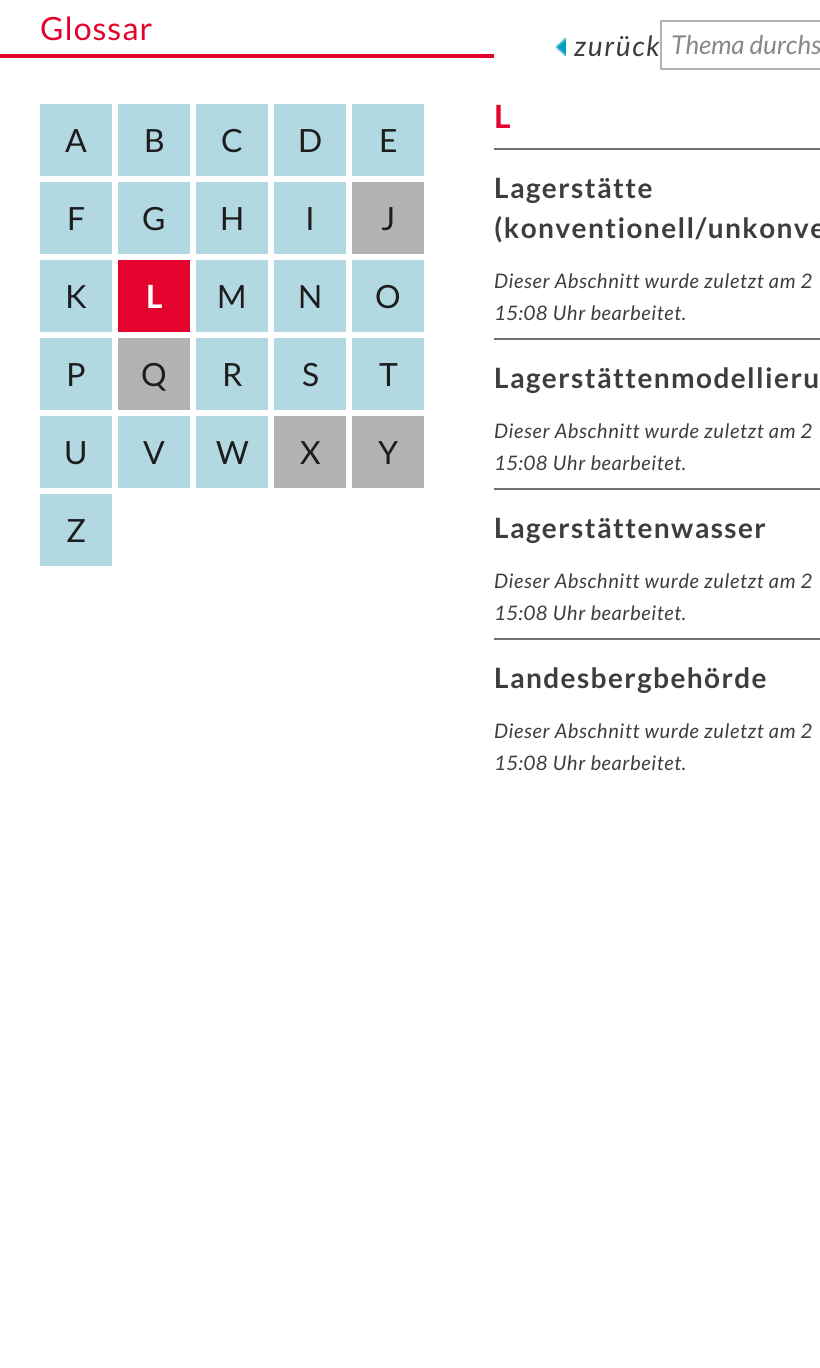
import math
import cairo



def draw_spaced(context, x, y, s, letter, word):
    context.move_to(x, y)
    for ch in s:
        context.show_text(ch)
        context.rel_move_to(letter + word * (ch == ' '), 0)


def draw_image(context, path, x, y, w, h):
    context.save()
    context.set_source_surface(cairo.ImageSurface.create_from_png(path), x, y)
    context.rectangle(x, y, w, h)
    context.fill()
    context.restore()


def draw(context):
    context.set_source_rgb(1, 1, 1)
    context.paint()
    context.set_source_rgb(227 / 255, 3 / 255, 45 / 255)
    context.rectangle(0, 54, 494, 4)
    context.fill()
    context.set_source_rgb(178 / 255, 216 / 255, 226 / 255)
    context.rectangle(40, 104, 72, 72)
    context.fill()
    context.rectangle(118, 104, 72, 72)
    context.fill()
    context.rectangle(196, 104, 72, 72)
    context.fill()
    context.rectangle(274, 104, 72, 72)
    context.fill()
    context.rectangle(352, 104, 72, 72)
    context.fill()
    context.rectangle(40, 182, 72, 72)
    context.fill()
    context.rectangle(118, 182, 72, 72)
    context.fill()
    context.rectangle(196, 182, 72, 72)
    context.fill()
    context.rectangle(274, 182, 72, 72)
    context.fill()
    context.set_source_rgb(177 / 255, 179 / 255, 180 / 255)
    context.rectangle(352, 182, 72, 72)
    context.fill()
    context.set_source_rgb(178 / 255, 216 / 255, 226 / 255)
    context.rectangle(40, 260, 72, 72)
    context.fill()
    context.set_source_rgb(227 / 255, 3 / 255, 45 / 255)
    context.rectangle(118, 260, 72, 72)
    context.fill()
    context.set_source_rgb(178 / 255, 216 / 255, 226 / 255)
    context.rectangle(196, 260, 72, 72)
    context.fill()
    context.rectangle(274, 260, 72, 72)
    context.fill()
    context.rectangle(352, 260, 72, 72)
    context.fill()
    context.rectangle(40, 338, 72, 72)
    context.fill()
    context.set_source_rgb(177 / 255, 179 / 255, 180 / 255)
    context.rectangle(118, 338, 72, 72)
    context.fill()
    context.set_source_rgb(178 / 255, 216 / 255, 226 / 255)
    context.rectangle(196, 338, 72, 72)
    context.fill()
    context.rectangle(274, 338, 72, 72)
    context.fill()
    context.rectangle(352, 338, 72, 72)
    context.fill()
    context.rectangle(40, 416, 72, 72)
    context.fill()
    context.rectangle(118, 416, 72, 72)
    context.fill()
    context.rectangle(196, 416, 72, 72)
    context.fill()
    context.set_source_rgb(177 / 255, 179 / 255, 180 / 255)
    context.rectangle(274, 416, 72, 72)
    context.fill()
    context.rectangle(352, 416, 72, 72)
    context.fill()
    context.set_source_rgb(178 / 255, 216 / 255, 226 / 255)
    context.rectangle(40, 494, 72, 72)
    context.fill()
    draw_image(context, "images/1.png", 556, 38, 10, 18)
    context.rectangle(661, 21, 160, 48)
    context.set_source_rgb(177 / 255, 179 / 255, 180 / 255)
    context.stroke()
    context.set_source_rgb(112 / 255, 113 / 255, 115 / 255)
    context.rectangle(494, 148, 326, 2)
    context.fill()
    context.rectangle(494, 338, 326, 2)
    context.fill()
    context.rectangle(494, 488, 326, 2)
    context.fill()
    context.rectangle(494, 638, 326, 2)
    context.fill()
    context.select_font_face("Lato")
    context.set_font_size(32)
    context.set_source_rgb(227 / 255, 3 / 255, 45 / 255)
    draw_spaced(context, 40, 40, "Glossar", 1, 0)
    context.set_source_rgb(29 / 255, 29 / 255, 29 / 255)
    context.move_to(65, 152)
    context.show_text("A")
    context.move_to(144, 152)
    context.show_text("B")
    context.move_to(221, 152)
    context.show_text("C")
    context.move_to(298, 152)
    context.show_text("D")
    context.move_to(379, 152)
    context.show_text("E")
    context.move_to(67, 230)
    context.show_text("F")
    context.move_to(142, 230)
    context.show_text("G")
    context.move_to(220, 230)
    context.show_text("H")
    context.move_to(305, 230)
    context.show_text("I")
    context.move_to(381, 230)
    context.show_text("J")
    context.move_to(65, 308)
    context.show_text("K")
    context.select_font_face("Lato", cairo.FontSlant.NORMAL, cairo.FontWeight.BOLD)
    context.set_source_rgb(1, 1, 1)
    context.move_to(146, 308)
    context.show_text("L")
    context.select_font_face("Lato")
    context.set_source_rgb(29 / 255, 29 / 255, 29 / 255)
    context.move_to(217, 308)
    context.show_text("M")
    context.move_to(298, 308)
    context.show_text("N")
    context.move_to(375, 308)
    context.show_text("O")
    context.move_to(66, 386)
    context.show_text("P")
    context.move_to(141, 386)
    context.show_text("Q")
    context.move_to(222, 386)
    context.show_text("R")
    context.move_to(302, 386)
    context.show_text("S")
    context.move_to(379, 386)
    context.show_text("T")
    context.move_to(64, 464)
    context.show_text("U")
    context.move_to(143, 464)
    context.show_text("V")
    context.move_to(216, 464)
    context.show_text("W")
    context.move_to(300, 464)
    context.show_text("X")
    context.move_to(378, 464)
    context.show_text("Y")
    context.move_to(66, 542)
    context.show_text("Z")
    context.select_font_face("Lato", cairo.FontSlant.ITALIC)
    context.set_font_size(28)
    context.set_source_rgb(61 / 255, 60 / 255, 63 / 255)
    draw_spaced(context, 574, 56, "zurück", 1.75, 0)
    context.set_font_size(26)
    context.set_source_rgb(135 / 255, 136 / 255, 138 / 255)
    context.move_to(671, 54)
    context.show_text("Thema durchs")
    context.select_font_face("Lato", cairo.FontSlant.NORMAL, cairo.FontWeight.BOLD)
    context.set_font_size(32)
    context.set_source_rgb(227 / 255, 3 / 255, 45 / 255)
    draw_spaced(context, 494, 128, "L", 1, 0)
    context.set_font_size(28)
    context.set_source_rgb(61 / 255, 60 / 255, 63 / 255)
    draw_spaced(context, 494, 198, "Lagerstätte", 1.4, 0)
    draw_spaced(context, 494, 238, "(konventionell/unkonve", 1.4, 0)
    context.select_font_face("Lato", cairo.FontSlant.ITALIC)
    context.set_font_size(20)
    draw_spaced(context, 494, 288, "Dieser Abschnitt wurde zuletzt am 2", 0.7, 0)
    draw_spaced(context, 494, 320, "15:08 Uhr bearbeitet.", 0.7, 0)
    context.select_font_face("Lato", cairo.FontSlant.NORMAL, cairo.FontWeight.BOLD)
    context.set_font_size(28)
    draw_spaced(context, 494, 388, "Lagerstättenmodellieru", 1.4, 0)
    context.select_font_face("Lato", cairo.FontSlant.ITALIC)
    context.set_font_size(20)
    draw_spaced(context, 494, 438, "Dieser Abschnitt wurde zuletzt am 2", 0.7, 0)
    draw_spaced(context, 494, 470, "15:08 Uhr bearbeitet.", 0.7, 0)
    context.select_font_face("Lato", cairo.FontSlant.NORMAL, cairo.FontWeight.BOLD)
    context.set_font_size(28)
    draw_spaced(context, 494, 538, "Lagerstättenwasser", 1.4, 0)
    context.select_font_face("Lato", cairo.FontSlant.ITALIC)
    context.set_font_size(20)
    draw_spaced(context, 494, 588, "Dieser Abschnitt wurde zuletzt am 2", 0.7, 0)
    draw_spaced(context, 494, 620, "15:08 Uhr bearbeitet.", 0.7, 0)
    context.select_font_face("Lato", cairo.FontSlant.NORMAL, cairo.FontWeight.BOLD)
    context.set_font_size(28)
    draw_spaced(context, 494, 688, "Landesbergbehörde", 1.4, 0)
    context.select_font_face("Lato", cairo.FontSlant.ITALIC)
    context.set_font_size(20)
    draw_spaced(context, 494, 738, "Dieser Abschnitt wurde zuletzt am 2", 0.7, 0)
    draw_spaced(context, 494, 770, "15:08 Uhr bearbeitet.", 0.7, 0)


surface = cairo.ImageSurface(cairo.Format.RGB24, 820, 1368)
context = cairo.Context(surface)
options = cairo.FontOptions()
options.set_hint_metrics(cairo.HintMetrics.OFF)
options.set_hint_style(cairo.HintStyle.NONE)
context.set_font_options(options)
context.set_miter_limit(4)
draw(context)
surface.write_to_png("out.png")
